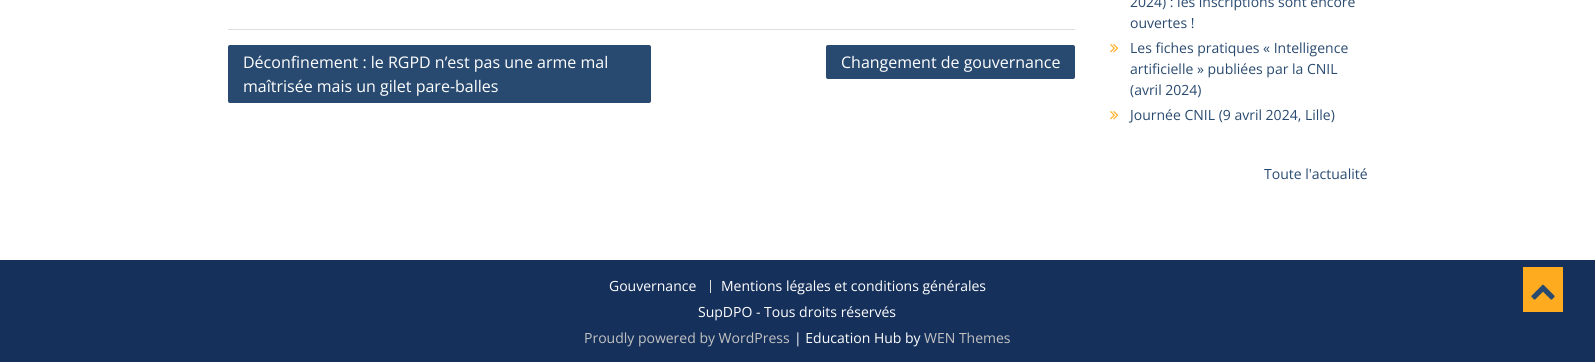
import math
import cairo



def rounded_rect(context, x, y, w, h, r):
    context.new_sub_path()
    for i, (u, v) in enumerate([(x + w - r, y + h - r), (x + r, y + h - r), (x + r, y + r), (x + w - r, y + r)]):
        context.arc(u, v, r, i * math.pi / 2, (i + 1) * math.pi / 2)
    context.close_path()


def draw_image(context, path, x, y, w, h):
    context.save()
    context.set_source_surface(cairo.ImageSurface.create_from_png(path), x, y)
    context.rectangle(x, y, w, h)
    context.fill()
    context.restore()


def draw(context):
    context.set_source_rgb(1, 1, 1)
    context.paint()
    context.set_source_rgb(221 / 255, 221 / 255, 221 / 255)
    context.rectangle(228, 29, 847, 1)
    context.fill()
    context.set_source_rgb(41 / 255, 74 / 255, 112 / 255)
    rounded_rect(context, 228, 45, 423, 58, 2)
    context.fill()
    rounded_rect(context, 826, 45, 249, 34, 2)
    context.fill()
    draw_image(context, "images/1.png", 1110, 44, 9, 9)
    draw_image(context, "images/1.png", 1110, 111, 9, 9)
    context.set_source_rgb(21 / 255, 48 / 255, 91 / 255)
    context.rectangle(0, 260, 1595, 102)
    context.fill()
    context.set_source_rgb(221 / 255, 221 / 255, 221 / 255)
    context.rectangle(710, 280, 1, 13)
    context.fill()
    context.set_source_rgb(1, 171 / 255, 31 / 255)
    context.rectangle(1523, 267, 40, 45)
    context.fill()
    draw_image(context, "images/2.png", 1531, 284, 24, 16)
    context.select_font_face("Open Sans")
    context.set_font_size(16)
    context.set_source_rgb(1, 1, 1)
    context.move_to(243, 68)
    context.show_text("Déconfinement : le RGPD n’est pas une arme mal")
    context.move_to(243, 92)
    context.show_text("maîtrisée mais un gilet pare-balles")
    context.move_to(841, 68)
    context.show_text("Changement de gouvernance")
    context.set_font_size(14)
    context.set_source_rgb(41 / 255, 74 / 255, 112 / 255)
    context.move_to(1130, 7)
    context.show_text("2024) : les inscriptions sont encore")
    context.move_to(1130, 28)
    context.show_text("ouvertes !")
    context.move_to(1130, 53)
    context.show_text("Les fiches pratiques « Intelligence")
    context.move_to(1130, 74)
    context.show_text("artificielle » publiées par la CNIL")
    context.move_to(1130, 95)
    context.show_text("(avril 2024)")
    context.move_to(1130, 120)
    context.show_text("Journée CNIL (9 avril 2024, Lille)")
    context.move_to(1264, 179)
    context.show_text("Toute l'actualité")
    context.set_source_rgb(1, 1, 1)
    context.move_to(609, 291)
    context.show_text("Gouvernance")
    context.move_to(721, 291)
    context.show_text("Mentions légales et conditions générales")
    context.move_to(698, 317)
    context.show_text("SupDPO - Tous droits réservés")
    context.set_source_rgb(194 / 255, 194 / 255, 194 / 255)
    context.move_to(584, 343)
    context.show_text("Proudly powered by WordPress")
    context.set_source_rgb(1, 1, 1)
    context.move_to(794, 343)
    context.show_text("| Education Hub by")
    context.set_source_rgb(194 / 255, 194 / 255, 194 / 255)
    context.move_to(924, 343)
    context.show_text("WEN Themes")


surface = cairo.ImageSurface(cairo.Format.RGB24, 1595, 362)
context = cairo.Context(surface)
options = cairo.FontOptions()
options.set_hint_metrics(cairo.HintMetrics.OFF)
options.set_hint_style(cairo.HintStyle.NONE)
context.set_font_options(options)
context.set_miter_limit(4)
draw(context)
surface.write_to_png("out.png")
